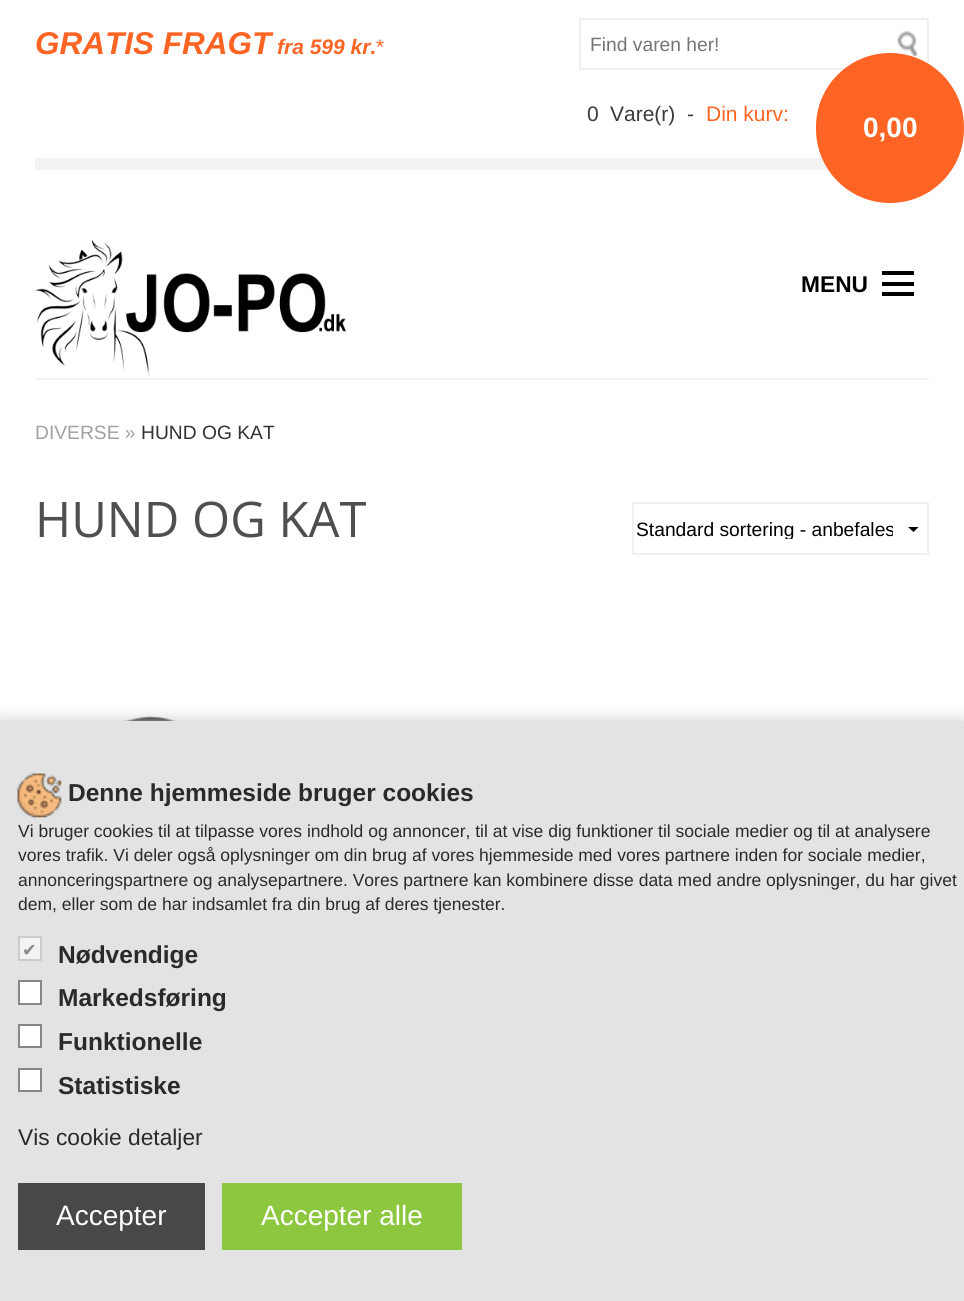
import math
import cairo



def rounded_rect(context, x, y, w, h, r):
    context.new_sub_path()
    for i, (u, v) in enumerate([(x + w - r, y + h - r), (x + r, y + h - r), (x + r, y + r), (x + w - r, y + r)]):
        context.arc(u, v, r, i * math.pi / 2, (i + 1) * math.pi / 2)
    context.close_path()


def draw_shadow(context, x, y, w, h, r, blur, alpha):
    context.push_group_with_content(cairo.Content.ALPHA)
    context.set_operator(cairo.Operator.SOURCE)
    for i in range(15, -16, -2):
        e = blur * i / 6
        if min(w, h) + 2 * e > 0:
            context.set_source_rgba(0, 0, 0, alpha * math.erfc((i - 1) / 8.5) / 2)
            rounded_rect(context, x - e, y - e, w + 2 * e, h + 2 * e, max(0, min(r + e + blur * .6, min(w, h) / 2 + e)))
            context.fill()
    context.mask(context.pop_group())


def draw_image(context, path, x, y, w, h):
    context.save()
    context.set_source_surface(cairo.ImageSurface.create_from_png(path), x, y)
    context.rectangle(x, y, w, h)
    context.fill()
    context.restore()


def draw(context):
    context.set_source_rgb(1, 1, 1)
    context.paint()
    context.set_source_rgb(243 / 255, 243 / 255, 243 / 255)
    context.rectangle(35, 158, 794, 12)
    context.fill()
    draw_image(context, "images/1.png", 897, 31, 20, 25)
    context.rectangle(580, 19, 348, 50)
    context.set_source_rgb(240 / 255, 240 / 255, 240 / 255)
    context.stroke()
    context.set_source_rgb(254 / 255, 101 / 255, 36 / 255)
    rounded_rect(context, 816, 53, 148, 150, 74)
    context.fill()
    context.set_source_rgb(243 / 255, 243 / 255, 243 / 255)
    context.rectangle(35, 378, 894, 2)
    context.fill()
    draw_image(context, "images/2.png", 35, 239, 311, 138)
    context.set_source_rgb(0, 0, 0)
    context.rectangle(882, 292, 32, 4)
    context.fill()
    context.rectangle(882, 282, 32, 4)
    context.fill()
    context.rectangle(882, 271, 32, 4)
    context.fill()
    context.new_path()
    context.move_to(918.5, 527)
    context.line_to(913.5, 532)
    context.line_to(908, 527)
    context.close_path()
    context.fill()
    context.rectangle(633, 503, 295, 51)
    context.set_source_rgb(240 / 255, 240 / 255, 240 / 255)
    context.stroke()
    draw_image(context, "images/3.png", 62, 715, 346, 6)
    context.set_source_rgb(204 / 255, 204 / 255, 204 / 255)
    draw_shadow(context, 0, 721, 964, 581, 0, 9, 1)
    context.set_source_rgb(227 / 255, 227 / 255, 227 / 255)
    context.rectangle(0, 721, 964, 580)
    context.fill()
    draw_image(context, "images/4.png", 17, 773, 45, 45)
    context.set_source_rgb(243 / 255, 243 / 255, 243 / 255)
    context.rectangle(19, 937, 22, 23)
    context.fill_preserve()
    context.set_source_rgb(204 / 255, 204 / 255, 204 / 255)
    context.stroke()
    context.set_source_rgb(1, 1, 1)
    context.rectangle(19, 981, 22, 23)
    context.fill_preserve()
    context.set_source_rgb(135 / 255, 135 / 255, 135 / 255)
    context.stroke()
    context.set_source_rgb(1, 1, 1)
    context.rectangle(19, 1025, 22, 22)
    context.fill_preserve()
    context.set_source_rgb(135 / 255, 135 / 255, 135 / 255)
    context.stroke()
    context.set_source_rgb(1, 1, 1)
    context.rectangle(19, 1069, 22, 22)
    context.fill_preserve()
    context.set_source_rgb(135 / 255, 135 / 255, 135 / 255)
    context.stroke()
    context.set_source_rgb(72 / 255, 72 / 255, 72 / 255)
    context.rectangle(18, 1183, 187, 67)
    context.fill()
    context.set_source_rgb(141 / 255, 198 / 255, 63 / 255)
    context.rectangle(222, 1183, 240, 67)
    context.fill()
    context.select_font_face("Liberation Sans", cairo.FontSlant.ITALIC, cairo.FontWeight.BOLD)
    context.set_font_size(31.5)
    context.set_source_rgb(254 / 255, 101 / 255, 36 / 255)
    context.move_to(35, 54)
    context.show_text("GRATIS FRAGT")
    context.set_font_size(21)
    context.move_to(277, 54)
    context.show_text("fra 599 kr.")
    context.select_font_face("Liberation Sans")
    context.move_to(376, 54)
    context.show_text("*")
    context.set_font_size(19.25)
    context.set_source_rgb(117 / 255, 117 / 255, 117 / 255)
    context.move_to(590, 51)
    context.show_text("Find varen her!")
    context.set_font_size(21)
    context.set_source_rgb(58 / 255, 58 / 255, 58 / 255)
    context.move_to(587, 121)
    context.show_text("0")
    context.move_to(610, 121)
    context.show_text("Vare(r)")
    context.move_to(687, 121)
    context.show_text("-")
    context.set_source_rgb(254 / 255, 101 / 255, 36 / 255)
    context.move_to(706, 121)
    context.show_text("Din kurv:")
    context.select_font_face("Liberation Sans", cairo.FontSlant.NORMAL, cairo.FontWeight.BOLD)
    context.set_font_size(28)
    context.set_source_rgb(1, 1, 1)
    context.move_to(863, 137)
    context.show_text("0,00")
    context.set_font_size(22.75)
    context.set_source_rgb(0, 0, 0)
    context.move_to(801, 292)
    context.show_text("MENU")
    context.select_font_face("Liberation Sans")
    context.set_font_size(19.25)
    context.set_source_rgb(161 / 255, 161 / 255, 161 / 255)
    context.move_to(35, 439)
    context.show_text("DIVERSE »")
    context.set_source_rgb(51 / 255, 51 / 255, 51 / 255)
    context.move_to(141, 439)
    context.show_text("HUND OG KAT")
    context.select_font_face("Open Sans")
    context.set_font_size(49)
    context.set_source_rgb(79 / 255, 79 / 255, 79 / 255)
    context.move_to(35, 537)
    context.show_text("HUND OG KAT")
    context.save()
    context.rectangle(637, 518, 256, 21)
    context.clip()
    context.select_font_face("Liberation Sans")
    context.set_font_size(19.25)
    context.set_source_rgb(0, 0, 0)
    context.move_to(636, 536)
    context.show_text("Standard sortering - anbefales")
    context.restore()
    context.select_font_face("Liberation Sans", cairo.FontSlant.NORMAL, cairo.FontWeight.BOLD)
    context.set_font_size(24.5)
    context.set_source_rgb(42 / 255, 42 / 255, 42 / 255)
    context.move_to(68, 801)
    context.show_text("Denne hjemmeside bruger cookies")
    context.select_font_face("Liberation Sans")
    context.set_font_size(17.5)
    context.move_to(18, 837)
    context.show_text("Vi bruger cookies til at tilpasse vores indhold og annoncer, til at vise dig funktioner til sociale medier og til at analysere")
    context.move_to(18, 861)
    context.show_text("vores trafik. Vi deler også oplysninger om din brug af vores hjemmeside med vores partnere inden for sociale medier,")
    context.move_to(18, 886)
    context.show_text("annonceringspartnere og analysepartnere. Vores partnere kan kombinere disse data med andre oplysninger, du har givet")
    context.move_to(18, 910)
    context.show_text("dem, eller som de har indsamlet fra din brug af deres tjenester.")
    context.select_font_face("DejaVu Sans")
    context.set_source_rgb(136 / 255, 136 / 255, 136 / 255)
    context.move_to(22, 956)
    context.show_text("✔")
    context.select_font_face("Liberation Sans", cairo.FontSlant.NORMAL, cairo.FontWeight.BOLD)
    context.set_font_size(24.5)
    context.set_source_rgb(42 / 255, 42 / 255, 42 / 255)
    context.move_to(58, 963)
    context.show_text("Nødvendige")
    context.move_to(58, 1006)
    context.show_text("Markedsføring")
    context.move_to(58, 1050)
    context.show_text("Funktionelle")
    context.move_to(58, 1094)
    context.show_text("Statistiske")
    context.select_font_face("Liberation Sans")
    context.set_font_size(22.75)
    context.move_to(18, 1145)
    context.show_text("Vis cookie detaljer")
    context.set_font_size(28)
    context.set_source_rgb(1, 1, 1)
    context.move_to(56, 1225)
    context.show_text("Accepter")
    context.move_to(261, 1225)
    context.show_text("Accepter alle")


surface = cairo.ImageSurface(cairo.Format.RGB24, 964, 1301)
context = cairo.Context(surface)
options = cairo.FontOptions()
options.set_hint_metrics(cairo.HintMetrics.OFF)
options.set_hint_style(cairo.HintStyle.NONE)
context.set_font_options(options)
context.set_miter_limit(4)
draw(context)
surface.write_to_png("out.png")
